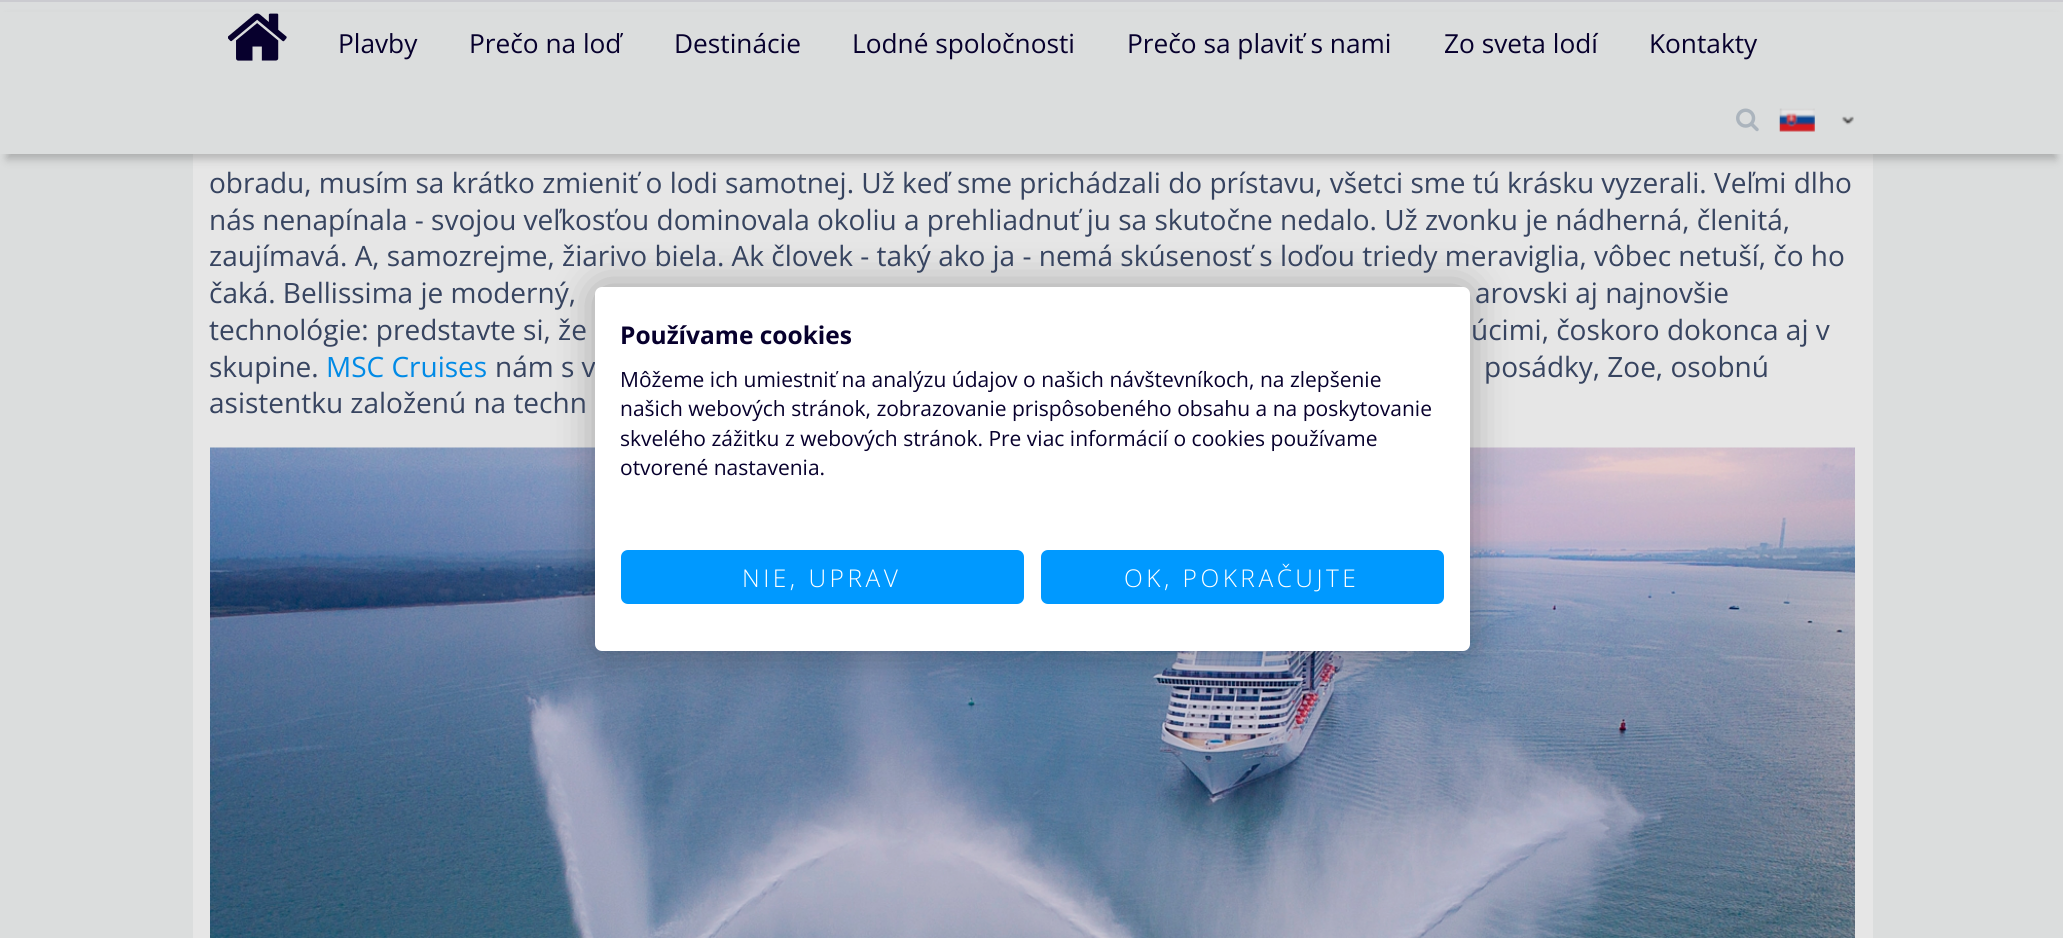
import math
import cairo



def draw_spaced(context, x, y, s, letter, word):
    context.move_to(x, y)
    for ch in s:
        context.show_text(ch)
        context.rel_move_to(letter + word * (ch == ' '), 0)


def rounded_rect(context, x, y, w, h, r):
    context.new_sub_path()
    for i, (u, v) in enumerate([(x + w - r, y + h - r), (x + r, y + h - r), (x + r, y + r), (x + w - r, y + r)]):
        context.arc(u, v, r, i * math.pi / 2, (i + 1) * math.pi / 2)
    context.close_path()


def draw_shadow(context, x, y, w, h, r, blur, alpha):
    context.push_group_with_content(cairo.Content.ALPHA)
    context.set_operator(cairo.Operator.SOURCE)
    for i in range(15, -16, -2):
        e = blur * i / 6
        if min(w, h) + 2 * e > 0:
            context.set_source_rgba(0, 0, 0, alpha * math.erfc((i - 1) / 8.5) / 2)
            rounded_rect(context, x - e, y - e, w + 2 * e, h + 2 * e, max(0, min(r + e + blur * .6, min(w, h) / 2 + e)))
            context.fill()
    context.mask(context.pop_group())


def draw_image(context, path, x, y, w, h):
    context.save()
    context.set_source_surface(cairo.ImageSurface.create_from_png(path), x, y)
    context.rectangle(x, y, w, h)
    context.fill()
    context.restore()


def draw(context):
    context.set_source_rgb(219 / 255, 221 / 255, 221 / 255)
    context.paint()
    context.set_source_rgb(230 / 255, 230 / 255, 230 / 255)
    context.rectangle(193, 154, 1680, 784)
    context.fill()
    context.set_source_rgb(0, 0, 0)
    draw_shadow(context, 7, 19, 2049, 140, 0, 4.5, 0.22)
    context.set_source_rgb(219 / 255, 221 / 255, 221 / 255)
    context.rectangle(0, 12, 2063, 142)
    context.fill()
    context.set_source_rgb(203 / 255, 203 / 255, 208 / 255)
    context.rectangle(0, 0, 2063, 2)
    context.fill()
    draw_image(context, "images/1.png", 228, 13, 59, 48)
    draw_image(context, "images/2.png", 1736, 108, 23, 24)
    draw_image(context, "images/3.png", 1779, 108, 36, 24)
    draw_image(context, "images/4.png", 1841, 116, 13, 9)
    draw_image(context, "images/5.png", 210, 447, 1645, 491)
    context.set_source_rgb(0, 0, 0)
    draw_shadow(context, 595, 287, 875, 364, 7, 21, 0.3)
    context.select_font_face("Open Sans")
    context.set_font_size(26.25)
    context.set_source_rgb(7 / 255, 0, 45 / 255)
    context.move_to(338, 53)
    context.show_text("Plavby")
    context.move_to(469, 53)
    context.show_text("Prečo na loď")
    context.move_to(674, 53)
    context.show_text("Destinácie")
    context.move_to(852, 53)
    context.show_text("Lodné spoločnosti")
    context.move_to(1127, 53)
    context.show_text("Prečo sa plaviť s nami")
    context.move_to(1444, 53)
    context.show_text("Zo sveta lodí")
    context.move_to(1649, 53)
    context.show_text("Kontakty")
    context.set_font_size(28)
    context.set_source_rgb(55 / 255, 68 / 255, 96 / 255)
    context.move_to(209, 193)
    context.show_text("obradu, musím sa krátko zmieniť o lodi samotnej. Už keď sme prichádzali do prístavu, všetci sme tú krásku vyzerali. Veľmi dlho")
    context.move_to(209, 230)
    context.show_text("nás nenapínala - svojou veľkosťou dominovala okoliu a prehliadnuť ju sa skutočne nedalo. Už zvonku je nádherná, členitá,")
    context.move_to(209, 266)
    context.show_text("zaujímavá. A, samozrejme, žiarivo biela. Ak človek - taký ako ja - nemá skúsenosť s loďou triedy meraviglia, vôbec netuší, čo ho")
    context.move_to(209, 303)
    context.show_text("čaká. Bellissima je moderný,")
    context.move_to(1475, 303)
    context.show_text("arovski aj najnovšie")
    context.move_to(209, 340)
    context.show_text("technológie: predstavte si, že")
    context.move_to(1471, 340)
    context.show_text("úcimi, čoskoro dokonca aj v")
    context.move_to(209, 377)
    context.show_text("skupine.")
    context.set_source_rgb(0, 138 / 255, 230 / 255)
    context.move_to(326, 377)
    context.show_text("MSC Cruises")
    context.set_source_rgb(55 / 255, 68 / 255, 96 / 255)
    context.move_to(495, 377)
    context.show_text("nám s v")
    context.move_to(1484, 377)
    context.show_text("posádky, Zoe, osobnú")
    context.move_to(209, 413)
    context.show_text("asistentku založenú na techn")
    context.set_source_rgb(1, 1, 1)
    rounded_rect(context, 595, 287, 875, 364, 7)
    context.fill()
    context.select_font_face("Open Sans", cairo.FontSlant.NORMAL, cairo.FontWeight.BOLD)
    context.set_font_size(24.5)
    context.set_source_rgb(7 / 255, 0, 45 / 255)
    context.move_to(620, 344)
    context.show_text("Používame cookies")
    context.select_font_face("Open Sans")
    context.set_font_size(21)
    context.move_to(620, 387)
    context.show_text("Môžeme ich umiestniť na analýzu údajov o našich návštevníkoch, na zlepšenie")
    context.move_to(620, 416)
    context.show_text("našich webových stránok, zobrazovanie prispôsobeného obsahu a na poskytovanie")
    context.move_to(620, 446)
    context.show_text("skvelého zážitku z webových stránok. Pre viac informácií o cookies používame")
    context.move_to(620, 475)
    context.show_text("otvorené nastavenia.")
    context.set_source_rgb(0, 153 / 255, 1)
    rounded_rect(context, 622, 551, 401, 52, 6)
    context.fill_preserve()
    context.stroke()
    context.select_font_face("Open Sans Light")
    context.set_font_size(24.5)
    context.set_source_rgb(1, 1, 1)
    draw_spaced(context, 742, 587, "NIE, UPRAV", 3.5, 0)
    context.set_source_rgb(0, 153 / 255, 1)
    rounded_rect(context, 1042, 551, 401, 52, 6)
    context.fill_preserve()
    context.stroke()
    context.set_source_rgb(1, 1, 1)
    draw_spaced(context, 1124, 587, "OK, POKRAČUJTE", 3.5, 0)


surface = cairo.ImageSurface(cairo.Format.RGB24, 2063, 938)
context = cairo.Context(surface)
options = cairo.FontOptions()
options.set_hint_metrics(cairo.HintMetrics.OFF)
options.set_hint_style(cairo.HintStyle.NONE)
context.set_font_options(options)
context.set_miter_limit(4)
draw(context)
surface.write_to_png("out.png")
